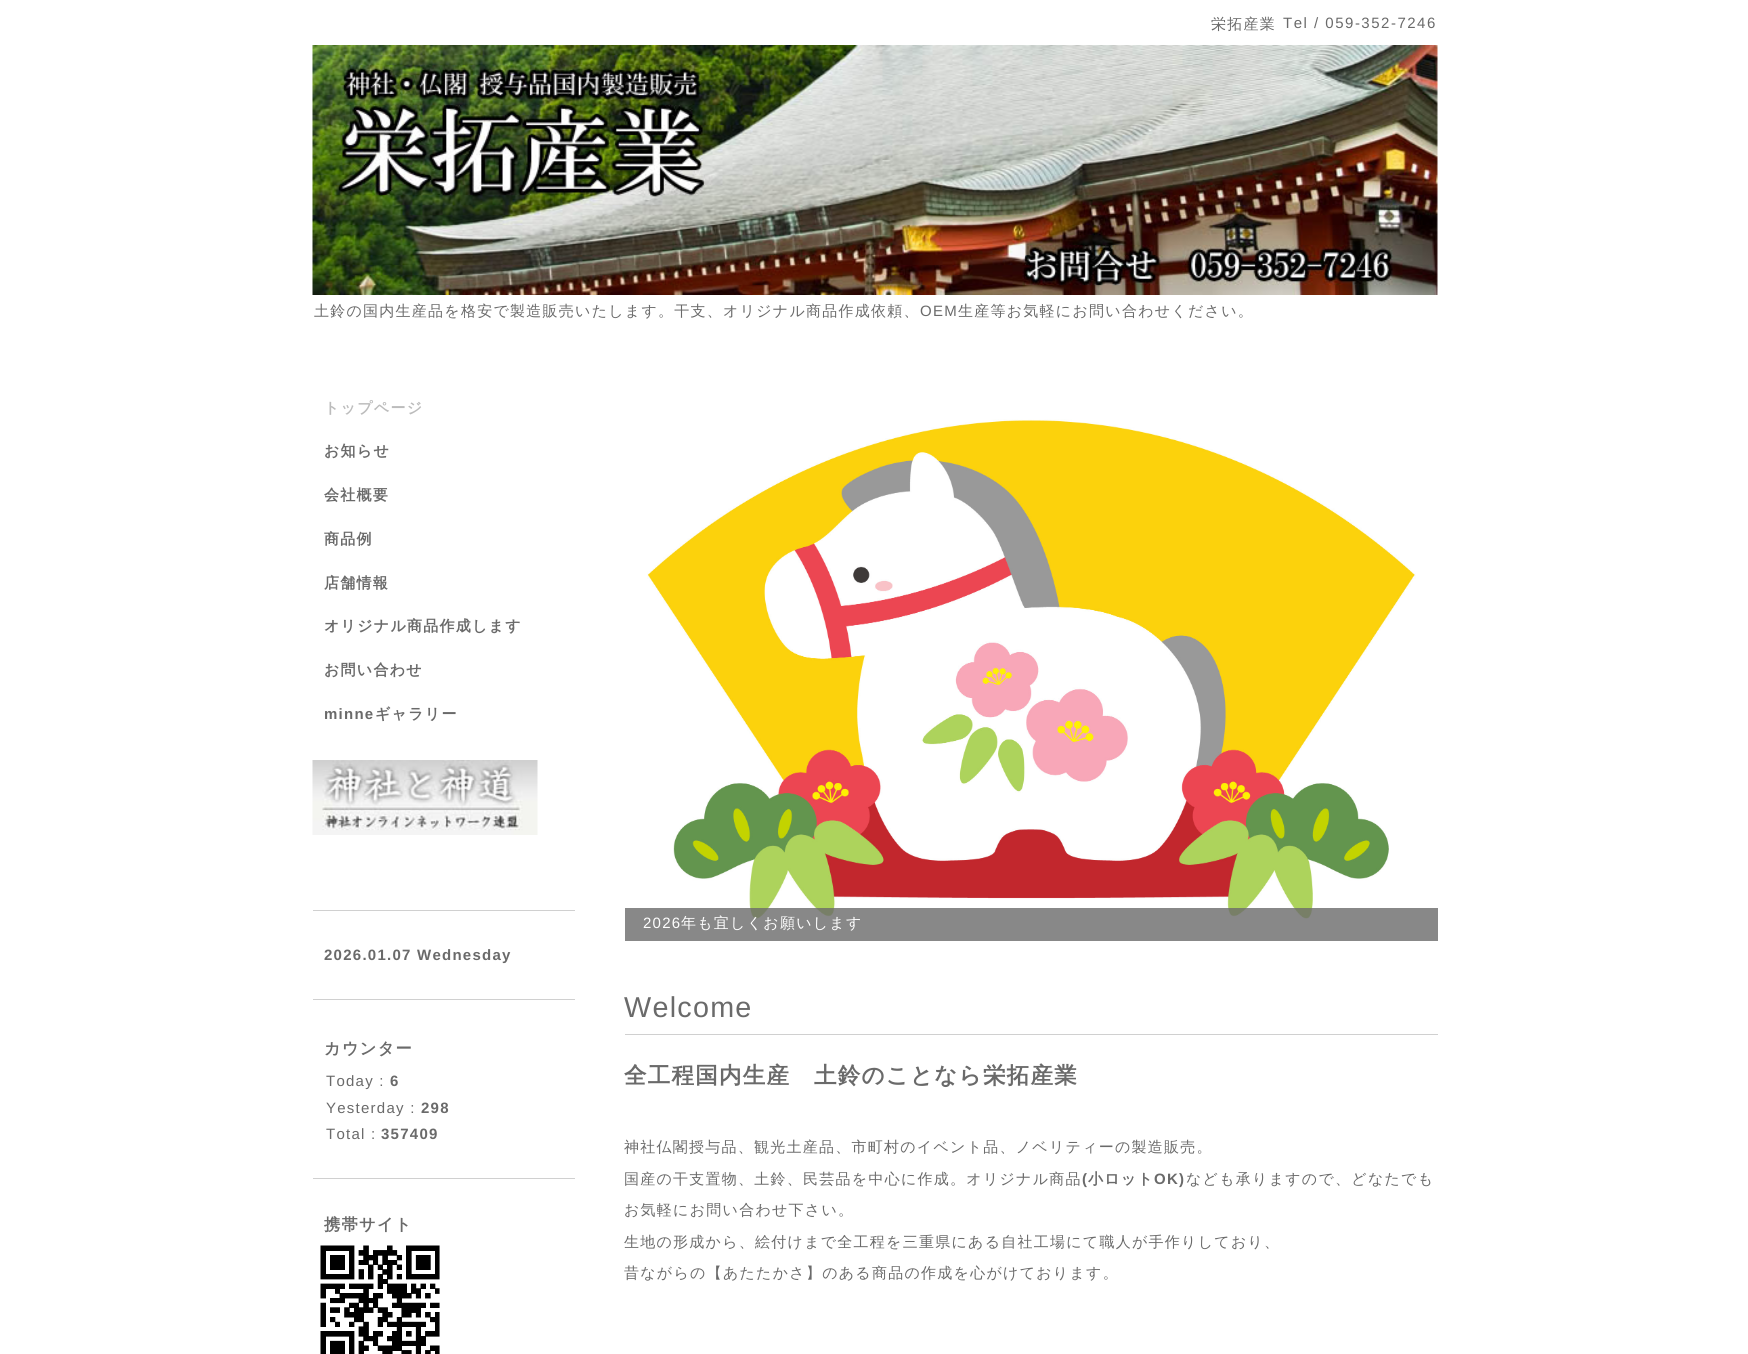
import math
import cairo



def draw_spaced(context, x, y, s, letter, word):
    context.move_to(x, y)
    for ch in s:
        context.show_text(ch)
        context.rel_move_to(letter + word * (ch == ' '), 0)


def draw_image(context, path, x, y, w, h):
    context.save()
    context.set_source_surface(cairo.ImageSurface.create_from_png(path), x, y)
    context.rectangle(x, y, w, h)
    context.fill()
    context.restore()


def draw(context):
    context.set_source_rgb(1, 1, 1)
    context.paint()
    draw_image(context, "images/1.png", 312, 45, 1126, 250)
    draw_image(context, "images/2.png", 312, 760, 226, 75)
    context.set_source_rgb(208 / 255, 208 / 255, 208 / 255)
    context.rectangle(313, 910, 262, 1)
    context.fill()
    context.rectangle(313, 999, 262, 1)
    context.fill()
    context.rectangle(313, 1178, 262, 1)
    context.fill()
    draw_image(context, "images/3.png", 320, 1245, 120, 109)
    draw_image(context, "images/4.png", 647, 419, 769, 500)
    context.set_source_rgba(106 / 255, 106 / 255, 106 / 255, 0.8)
    context.rectangle(625, 908, 813, 33)
    context.fill()
    context.set_source_rgb(208 / 255, 208 / 255, 208 / 255)
    context.rectangle(625, 1034, 813, 1)
    context.fill()
    context.select_font_face("WenQuanYi Zen Hei Medium")
    context.set_font_size(15)
    context.set_source_rgb(106 / 255, 106 / 255, 106 / 255)
    draw_spaced(context, 1211, 29, "栄拓産業", 1.25, 0)
    context.select_font_face("Liberation Sans")
    draw_spaced(context, 1283, 28, "Tel / 059-352-7246", 1.5, 0)
    context.select_font_face("WenQuanYi Zen Hei Medium")
    draw_spaced(context, 314, 316, "土鈴の国内生産品を格安で製造販売いたします。干支、オリジナル商品作成依頼、", 1.25, 0)
    context.select_font_face("Liberation Sans")
    draw_spaced(context, 920, 316, "OEM", 1.25, 0)
    context.select_font_face("WenQuanYi Zen Hei Medium")
    draw_spaced(context, 958, 316, "生産等お気軽にお問い合わせください。", 1.25, 0)
    context.select_font_face("WenQuanYi Zen Hei", cairo.FontSlant.NORMAL, cairo.FontWeight.BOLD)
    context.set_source_rgb(188 / 255, 188 / 255, 188 / 255)
    draw_spaced(context, 324, 413, "トップページ", 1.25, 0)
    context.set_source_rgb(106 / 255, 106 / 255, 106 / 255)
    draw_spaced(context, 324, 456, "お知らせ", 1.25, 0)
    draw_spaced(context, 324, 500, "会社概要", 1.25, 0)
    draw_spaced(context, 324, 544, "商品例", 1.25, 0)
    draw_spaced(context, 324, 588, "店舗情報", 1.25, 0)
    draw_spaced(context, 324, 631, "オリジナル商品作成します", 1.25, 0)
    draw_spaced(context, 324, 675, "お問い合わせ", 1.25, 0)
    context.select_font_face("Liberation Sans", cairo.FontSlant.NORMAL, cairo.FontWeight.BOLD)
    draw_spaced(context, 324, 719, "minne", 1.25, 0)
    context.select_font_face("WenQuanYi Zen Hei", cairo.FontSlant.NORMAL, cairo.FontWeight.BOLD)
    draw_spaced(context, 375, 719, "ギャラリー", 1.25, 0)
    context.select_font_face("Liberation Sans", cairo.FontSlant.NORMAL, cairo.FontWeight.BOLD)
    draw_spaced(context, 324, 960, "2026.01.07 Wednesday", 1.25, 0)
    context.select_font_face("WenQuanYi Zen Hei", cairo.FontSlant.NORMAL, cairo.FontWeight.BOLD)
    context.set_font_size(16.25)
    draw_spaced(context, 324, 1054, "カウンター", 1.25, 0)
    context.select_font_face("Liberation Sans")
    context.set_font_size(15)
    draw_spaced(context, 326, 1086, "Today :", 1.25, 0)
    context.select_font_face("Liberation Sans", cairo.FontSlant.NORMAL, cairo.FontWeight.BOLD)
    draw_spaced(context, 390, 1086, "6", 1.25, 0)
    context.select_font_face("Liberation Sans")
    draw_spaced(context, 326, 1113, "Yesterday :", 1.25, 0)
    context.select_font_face("Liberation Sans", cairo.FontSlant.NORMAL, cairo.FontWeight.BOLD)
    draw_spaced(context, 421, 1113, "298", 1.25, 0)
    context.select_font_face("Liberation Sans")
    draw_spaced(context, 326, 1139, "Total :", 1.25, 0)
    context.select_font_face("Liberation Sans", cairo.FontSlant.NORMAL, cairo.FontWeight.BOLD)
    draw_spaced(context, 381, 1139, "357409", 1.25, 0)
    context.select_font_face("WenQuanYi Zen Hei", cairo.FontSlant.NORMAL, cairo.FontWeight.BOLD)
    context.set_font_size(16.25)
    draw_spaced(context, 324, 1230, "携帯サイト", 1.25, 0)
    context.select_font_face("Liberation Sans")
    context.set_font_size(15)
    context.set_source_rgb(1, 1, 1)
    draw_spaced(context, 643, 928, "2026", 1.25, 0)
    context.select_font_face("WenQuanYi Zen Hei Medium")
    draw_spaced(context, 681, 928, "年も宜しくお願いします", 1.25, 0)
    context.select_font_face("Liberation Sans")
    context.set_font_size(28.75)
    context.set_source_rgb(106 / 255, 106 / 255, 106 / 255)
    draw_spaced(context, 624, 1017, "Welcome", 1.25, 0)
    context.select_font_face("WenQuanYi Zen Hei", cairo.FontSlant.NORMAL, cairo.FontWeight.BOLD)
    context.set_font_size(22.5)
    draw_spaced(context, 624, 1083, "全工程国内生産　土鈴のことなら栄拓産業", 1.25, 0)
    context.select_font_face("WenQuanYi Zen Hei Medium")
    context.set_font_size(15)
    draw_spaced(context, 624, 1152, "神社仏閣授与品、観光土産品、市町村のイベント品、ノベリティーの製造販売。", 1.25, 0)
    draw_spaced(context, 624, 1184, "国産の干支置物、土鈴、民芸品を中心に作成。オリジナル商品", 1.25, 0)
    context.select_font_face("Liberation Sans", cairo.FontSlant.NORMAL, cairo.FontWeight.BOLD)
    draw_spaced(context, 1082, 1184, "(", 1.25, 0)
    context.select_font_face("WenQuanYi Zen Hei", cairo.FontSlant.NORMAL, cairo.FontWeight.BOLD)
    draw_spaced(context, 1088, 1184, "小ロット", 1.25, 0)
    context.select_font_face("Liberation Sans", cairo.FontSlant.NORMAL, cairo.FontWeight.BOLD)
    draw_spaced(context, 1154, 1184, "OK)", 1.25, 0)
    context.select_font_face("WenQuanYi Zen Hei Medium")
    draw_spaced(context, 1186, 1184, "なども承りますので、どなたでも", 1.25, 0)
    draw_spaced(context, 624, 1215, "お気軽にお問い合わせ下さい。", 1.25, 0)
    draw_spaced(context, 624, 1247, "生地の形成から、絵付けまで全工程を三重県にある自社工場にて職人が手作りしており、", 1.25, 0)
    draw_spaced(context, 624, 1278, "昔ながらの【あたたかさ】のある商品の作成を心がけております。", 1.25, 0)


surface = cairo.ImageSurface(cairo.Format.RGB24, 1748, 1354)
context = cairo.Context(surface)
options = cairo.FontOptions()
options.set_hint_metrics(cairo.HintMetrics.OFF)
options.set_hint_style(cairo.HintStyle.NONE)
context.set_font_options(options)
context.set_miter_limit(4)
draw(context)
surface.write_to_png("out.png")
